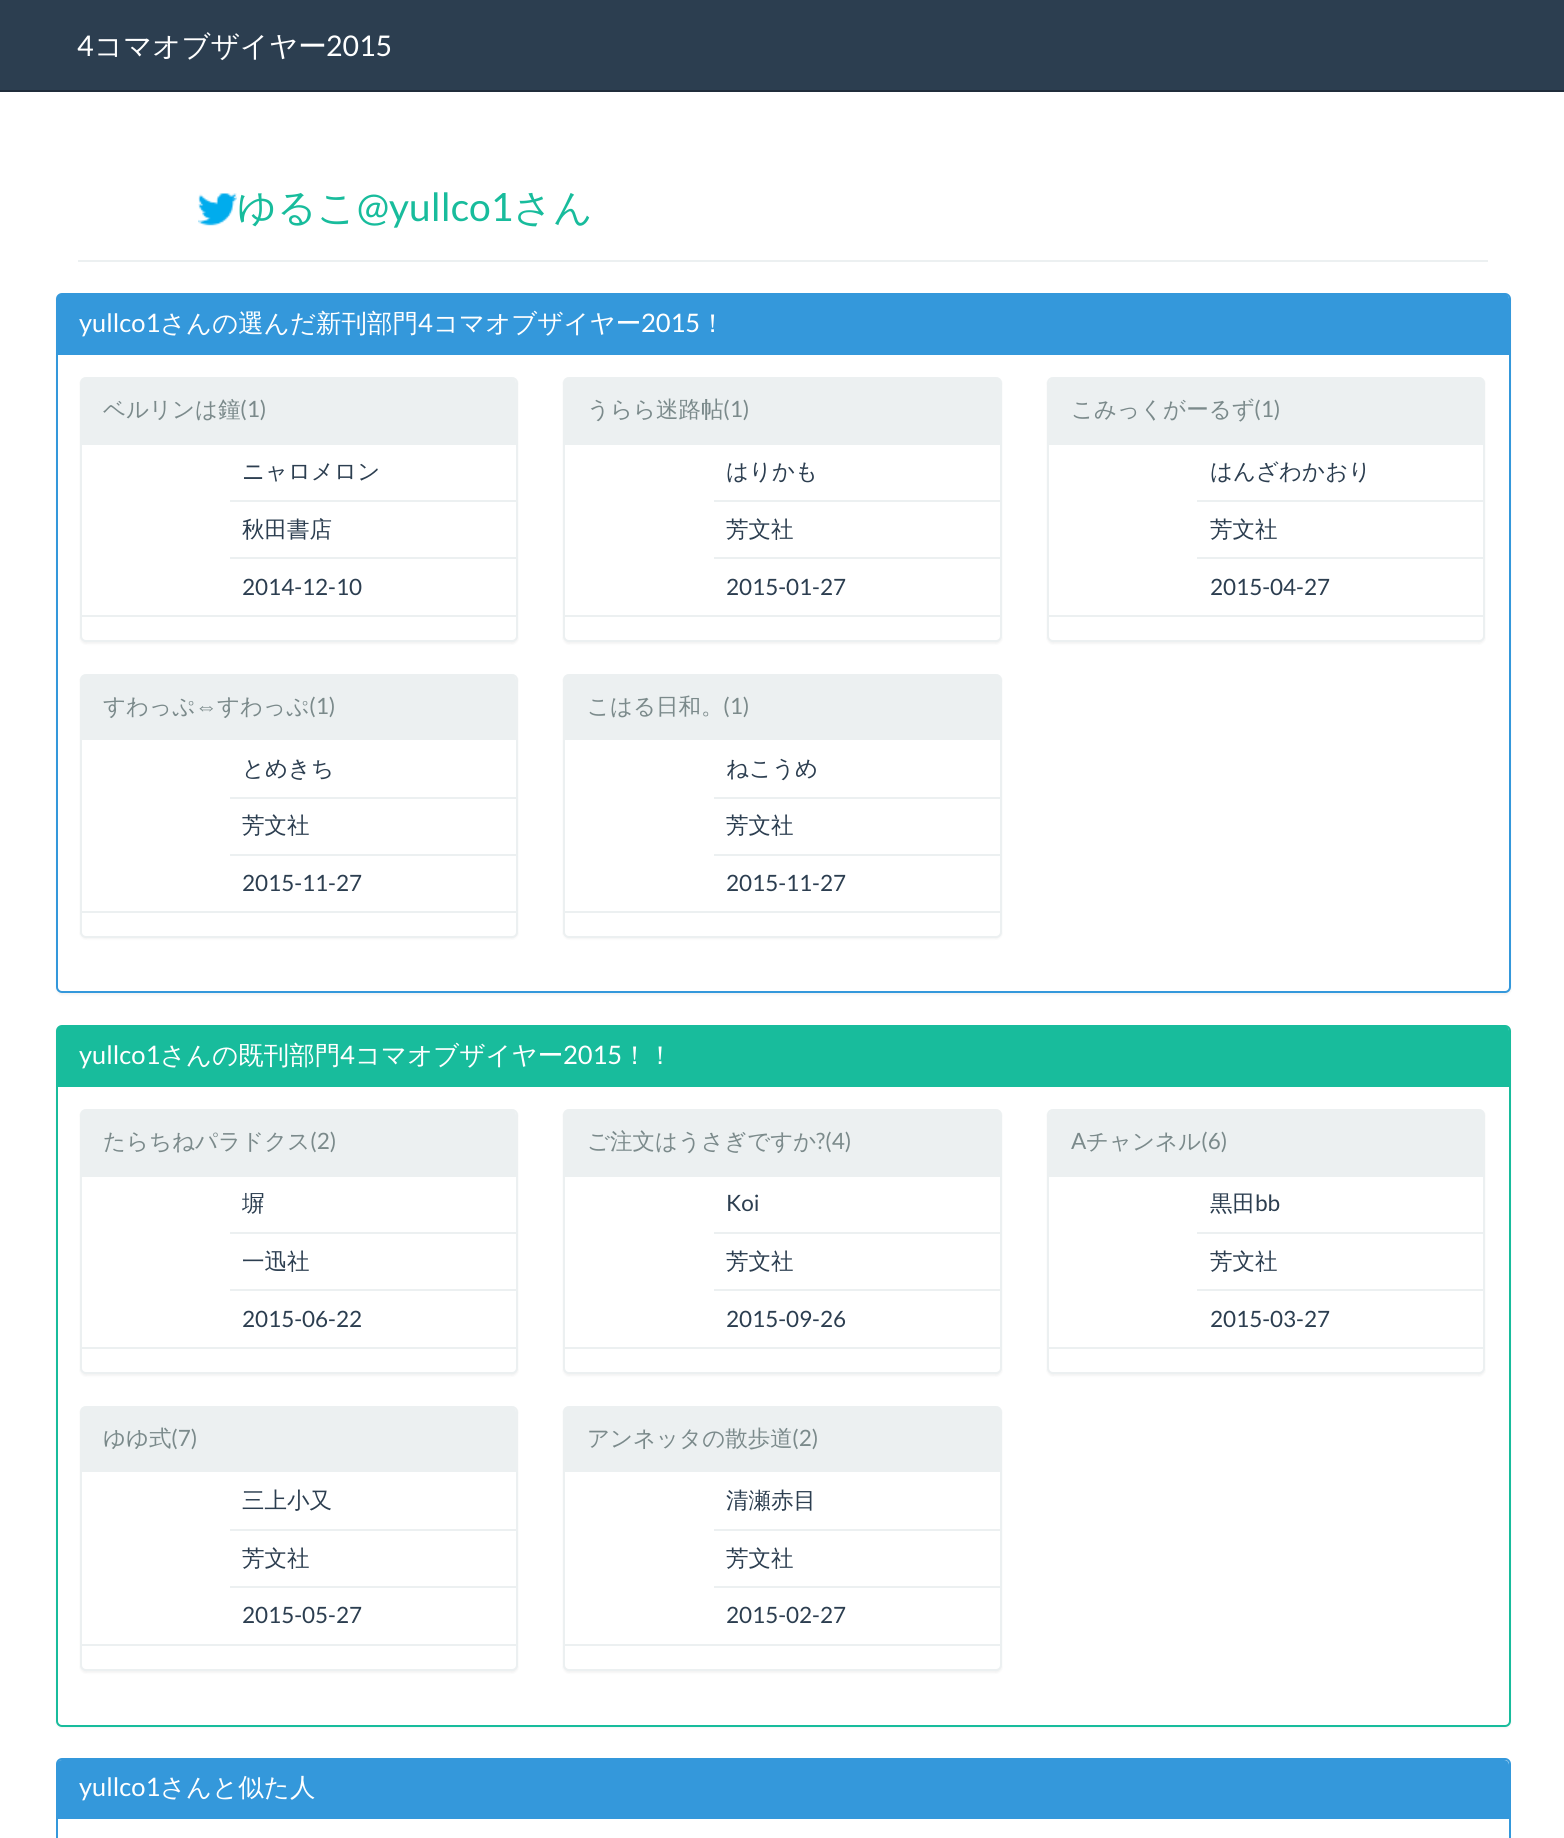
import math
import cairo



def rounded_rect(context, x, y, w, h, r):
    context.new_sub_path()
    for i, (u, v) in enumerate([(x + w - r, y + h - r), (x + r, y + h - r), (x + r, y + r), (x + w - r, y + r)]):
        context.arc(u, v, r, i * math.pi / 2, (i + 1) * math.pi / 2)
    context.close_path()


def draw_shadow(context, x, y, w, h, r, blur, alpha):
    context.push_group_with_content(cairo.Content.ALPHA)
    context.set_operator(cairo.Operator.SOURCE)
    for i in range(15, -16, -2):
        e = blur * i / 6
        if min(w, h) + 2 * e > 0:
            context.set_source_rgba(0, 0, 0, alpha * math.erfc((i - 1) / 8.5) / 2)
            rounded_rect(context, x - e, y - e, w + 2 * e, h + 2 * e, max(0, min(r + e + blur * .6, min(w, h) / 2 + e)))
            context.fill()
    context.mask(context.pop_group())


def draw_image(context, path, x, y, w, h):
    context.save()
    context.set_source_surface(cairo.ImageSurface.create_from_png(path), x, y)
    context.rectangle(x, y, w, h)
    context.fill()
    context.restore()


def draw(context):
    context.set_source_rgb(1, 1, 1)
    context.paint()
    context.set_source_rgb(44 / 255, 62 / 255, 80 / 255)
    context.rectangle(0, 0, 1564, 90)
    context.fill()
    context.set_source_rgb(32 / 255, 45 / 255, 59 / 255)
    context.rectangle(0, 90, 1564, 2)
    context.fill()
    context.set_source_rgb(236 / 255, 240 / 255, 241 / 255)
    context.rectangle(78, 260, 1410, 2)
    context.fill()
    draw_image(context, "images/1.png", 198, 193, 39, 33)
    context.set_source_rgb(0, 0, 0)
    draw_shadow(context, 56, 294, 1455, 701, 6, 1, 0.05)
    context.set_source_rgb(1, 1, 1)
    rounded_rect(context, 57, 294, 1453, 698, 5)
    context.fill_preserve()
    context.set_source_rgb(52 / 255, 152 / 255, 219 / 255)
    context.stroke()
    context.new_path()
    context.move_to(62, 294)
    context.line_to(1504, 294)
    context.curve_to(1507, 294, 1509, 296, 1509, 299)
    context.line_to(1509, 354)
    context.line_to(57, 354)
    context.line_to(57, 299)
    context.curve_to(57, 296, 59, 294, 62, 294)
    context.close_path()
    context.fill()
    context.rectangle(57, 354, 1452, 1)
    context.fill()
    context.set_source_rgb(0, 0, 0)
    draw_shadow(context, 80, 378, 438, 266, 6, 1, 0.05)
    context.set_source_rgb(1, 1, 1)
    rounded_rect(context, 81, 378, 436, 263, 5)
    context.fill_preserve()
    context.set_source_rgb(236 / 255, 240 / 255, 241 / 255)
    context.stroke()
    context.new_path()
    context.move_to(86, 378)
    context.line_to(511, 378)
    context.curve_to(514, 378, 516, 380, 516, 383)
    context.line_to(516, 443)
    context.line_to(81, 443)
    context.line_to(81, 383)
    context.curve_to(81, 380, 83, 378, 86, 378)
    context.close_path()
    context.fill()
    context.rectangle(80, 443, 438, 2)
    context.fill()
    context.rectangle(230, 500, 288, 2)
    context.fill()
    context.rectangle(230, 557, 288, 2)
    context.fill()
    context.rectangle(80, 615, 438, 2)
    context.fill()
    context.set_source_rgb(0, 0, 0)
    draw_shadow(context, 563, 378, 439, 266, 6, 1, 0.05)
    context.set_source_rgb(1, 1, 1)
    rounded_rect(context, 564, 378, 437, 263, 5)
    context.fill_preserve()
    context.set_source_rgb(236 / 255, 240 / 255, 241 / 255)
    context.stroke()
    context.new_path()
    context.move_to(569, 378)
    context.line_to(996, 378)
    context.curve_to(999, 378, 1001, 380, 1001, 383)
    context.line_to(1001, 443)
    context.line_to(564, 443)
    context.line_to(564, 383)
    context.curve_to(564, 380, 566, 378, 569, 378)
    context.close_path()
    context.fill()
    context.rectangle(564, 443, 437, 2)
    context.fill()
    context.rectangle(714, 500, 287, 2)
    context.fill()
    context.rectangle(714, 557, 287, 2)
    context.fill()
    context.rectangle(564, 615, 437, 2)
    context.fill()
    context.set_source_rgb(0, 0, 0)
    draw_shadow(context, 1047, 378, 438, 266, 6, 1, 0.05)
    context.set_source_rgb(1, 1, 1)
    rounded_rect(context, 1048, 378, 436, 263, 5)
    context.fill_preserve()
    context.set_source_rgb(236 / 255, 240 / 255, 241 / 255)
    context.stroke()
    context.new_path()
    context.move_to(1054, 378)
    context.line_to(1479, 378)
    context.curve_to(1482, 378, 1484, 380, 1484, 383)
    context.line_to(1484, 443)
    context.line_to(1049, 443)
    context.line_to(1049, 383)
    context.curve_to(1049, 380, 1051, 378, 1054, 378)
    context.close_path()
    context.fill()
    context.rectangle(1047, 443, 438, 2)
    context.fill()
    context.rectangle(1197, 500, 288, 2)
    context.fill()
    context.rectangle(1197, 557, 288, 2)
    context.fill()
    context.rectangle(1047, 615, 438, 2)
    context.fill()
    context.set_source_rgb(0, 0, 0)
    draw_shadow(context, 80, 675, 438, 264, 6, 1, 0.05)
    context.set_source_rgb(1, 1, 1)
    rounded_rect(context, 81, 675, 436, 262, 5)
    context.fill_preserve()
    context.set_source_rgb(236 / 255, 240 / 255, 241 / 255)
    context.stroke()
    context.new_path()
    context.move_to(86, 675)
    context.line_to(511, 675)
    context.curve_to(514, 675, 516, 677, 516, 680)
    context.line_to(516, 738)
    context.line_to(81, 738)
    context.line_to(81, 680)
    context.curve_to(81, 677, 83, 675, 86, 675)
    context.close_path()
    context.fill()
    context.rectangle(80, 738, 438, 2)
    context.fill()
    context.rectangle(230, 797, 288, 2)
    context.fill()
    context.rectangle(230, 854, 288, 2)
    context.fill()
    context.rectangle(80, 911, 438, 2)
    context.fill()
    context.set_source_rgb(0, 0, 0)
    draw_shadow(context, 563, 675, 439, 264, 6, 1, 0.05)
    context.set_source_rgb(1, 1, 1)
    rounded_rect(context, 564, 675, 437, 262, 5)
    context.fill_preserve()
    context.set_source_rgb(236 / 255, 240 / 255, 241 / 255)
    context.stroke()
    context.new_path()
    context.move_to(569, 675)
    context.line_to(996, 675)
    context.curve_to(999, 675, 1001, 677, 1001, 680)
    context.line_to(1001, 738)
    context.line_to(564, 738)
    context.line_to(564, 680)
    context.curve_to(564, 677, 566, 675, 569, 675)
    context.close_path()
    context.fill()
    context.rectangle(564, 738, 437, 2)
    context.fill()
    context.rectangle(714, 797, 287, 2)
    context.fill()
    context.rectangle(714, 854, 287, 2)
    context.fill()
    context.rectangle(564, 911, 437, 2)
    context.fill()
    context.set_source_rgb(0, 0, 0)
    draw_shadow(context, 56, 1026, 1455, 702, 6, 1, 0.05)
    context.set_source_rgb(1, 1, 1)
    rounded_rect(context, 57, 1026, 1453, 700, 5)
    context.fill_preserve()
    context.set_source_rgb(24 / 255, 188 / 255, 156 / 255)
    context.stroke()
    context.new_path()
    context.move_to(62, 1026)
    context.line_to(1504, 1026)
    context.curve_to(1507, 1026, 1509, 1028, 1509, 1031)
    context.line_to(1509, 1086)
    context.line_to(57, 1086)
    context.line_to(57, 1031)
    context.curve_to(57, 1028, 59, 1026, 62, 1026)
    context.close_path()
    context.fill()
    context.rectangle(57, 1086, 1452, 1)
    context.fill()
    context.set_source_rgb(0, 0, 0)
    draw_shadow(context, 80, 1110, 438, 266, 6, 1, 0.05)
    context.set_source_rgb(1, 1, 1)
    rounded_rect(context, 81, 1110, 436, 263, 5)
    context.fill_preserve()
    context.set_source_rgb(236 / 255, 240 / 255, 241 / 255)
    context.stroke()
    context.new_path()
    context.move_to(86, 1110)
    context.line_to(511, 1110)
    context.curve_to(514, 1110, 516, 1112, 516, 1115)
    context.line_to(516, 1175)
    context.line_to(81, 1175)
    context.line_to(81, 1115)
    context.curve_to(81, 1112, 83, 1110, 86, 1110)
    context.close_path()
    context.fill()
    context.rectangle(80, 1175, 438, 2)
    context.fill()
    context.rectangle(230, 1232, 288, 2)
    context.fill()
    context.rectangle(230, 1289, 288, 2)
    context.fill()
    context.rectangle(80, 1347, 438, 2)
    context.fill()
    context.set_source_rgb(0, 0, 0)
    draw_shadow(context, 563, 1110, 439, 266, 6, 1, 0.05)
    context.set_source_rgb(1, 1, 1)
    rounded_rect(context, 564, 1110, 437, 263, 5)
    context.fill_preserve()
    context.set_source_rgb(236 / 255, 240 / 255, 241 / 255)
    context.stroke()
    context.new_path()
    context.move_to(569, 1110)
    context.line_to(996, 1110)
    context.curve_to(999, 1110, 1001, 1112, 1001, 1115)
    context.line_to(1001, 1175)
    context.line_to(564, 1175)
    context.line_to(564, 1115)
    context.curve_to(564, 1112, 566, 1110, 569, 1110)
    context.close_path()
    context.fill()
    context.rectangle(564, 1175, 437, 2)
    context.fill()
    context.rectangle(714, 1232, 287, 2)
    context.fill()
    context.rectangle(714, 1289, 287, 2)
    context.fill()
    context.rectangle(564, 1347, 437, 2)
    context.fill()
    context.set_source_rgb(0, 0, 0)
    draw_shadow(context, 1047, 1110, 438, 266, 6, 1, 0.05)
    context.set_source_rgb(1, 1, 1)
    rounded_rect(context, 1048, 1110, 436, 263, 5)
    context.fill_preserve()
    context.set_source_rgb(236 / 255, 240 / 255, 241 / 255)
    context.stroke()
    context.new_path()
    context.move_to(1054, 1110)
    context.line_to(1479, 1110)
    context.curve_to(1482, 1110, 1484, 1112, 1484, 1115)
    context.line_to(1484, 1175)
    context.line_to(1049, 1175)
    context.line_to(1049, 1115)
    context.curve_to(1049, 1112, 1051, 1110, 1054, 1110)
    context.close_path()
    context.fill()
    context.rectangle(1047, 1175, 438, 2)
    context.fill()
    context.rectangle(1197, 1232, 288, 2)
    context.fill()
    context.rectangle(1197, 1289, 288, 2)
    context.fill()
    context.rectangle(1047, 1347, 438, 2)
    context.fill()
    context.set_source_rgb(0, 0, 0)
    draw_shadow(context, 80, 1407, 438, 266, 6, 1, 0.05)
    context.set_source_rgb(1, 1, 1)
    rounded_rect(context, 81, 1407, 436, 263, 5)
    context.fill_preserve()
    context.set_source_rgb(236 / 255, 240 / 255, 241 / 255)
    context.stroke()
    context.new_path()
    context.move_to(86, 1407)
    context.line_to(511, 1407)
    context.curve_to(514, 1407, 516, 1409, 516, 1412)
    context.line_to(516, 1470)
    context.line_to(81, 1470)
    context.line_to(81, 1412)
    context.curve_to(81, 1409, 83, 1407, 86, 1407)
    context.close_path()
    context.fill()
    context.rectangle(80, 1470, 438, 2)
    context.fill()
    context.rectangle(230, 1529, 288, 2)
    context.fill()
    context.rectangle(230, 1586, 288, 2)
    context.fill()
    context.rectangle(80, 1644, 438, 2)
    context.fill()
    context.set_source_rgb(0, 0, 0)
    draw_shadow(context, 563, 1407, 439, 266, 6, 1, 0.05)
    context.set_source_rgb(1, 1, 1)
    rounded_rect(context, 564, 1407, 437, 263, 5)
    context.fill_preserve()
    context.set_source_rgb(236 / 255, 240 / 255, 241 / 255)
    context.stroke()
    context.new_path()
    context.move_to(569, 1407)
    context.line_to(996, 1407)
    context.curve_to(999, 1407, 1001, 1409, 1001, 1412)
    context.line_to(1001, 1470)
    context.line_to(564, 1470)
    context.line_to(564, 1412)
    context.curve_to(564, 1409, 566, 1407, 569, 1407)
    context.close_path()
    context.fill()
    context.rectangle(564, 1470, 437, 2)
    context.fill()
    context.rectangle(714, 1529, 287, 2)
    context.fill()
    context.rectangle(714, 1586, 287, 2)
    context.fill()
    context.rectangle(564, 1644, 437, 2)
    context.fill()
    rounded_rect(context, 57, 1759, 1453, 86, 5)
    context.set_source_rgb(52 / 255, 152 / 255, 219 / 255)
    context.stroke()
    context.new_path()
    context.move_to(62, 1760)
    context.line_to(1504, 1760)
    context.curve_to(1507, 1760, 1509, 1762, 1509, 1765)
    context.line_to(1509, 1818)
    context.line_to(57, 1818)
    context.line_to(57, 1765)
    context.curve_to(57, 1762, 59, 1760, 62, 1760)
    context.close_path()
    context.fill()
    context.rectangle(57, 1818, 1452, 1)
    context.fill()
    context.select_font_face("Lato")
    context.set_font_size(28.5)
    context.set_source_rgb(1, 1, 1)
    context.move_to(77, 56)
    context.show_text("4")
    context.select_font_face("WenQuanYi Zen Hei Medium")
    context.move_to(94, 56)
    context.show_text("コマオブザイヤー")
    context.select_font_face("Lato")
    context.move_to(326, 56)
    context.show_text("2015")
    context.select_font_face("WenQuanYi Zen Hei Medium")
    context.set_font_size(39)
    context.set_source_rgb(24 / 255, 188 / 255, 156 / 255)
    context.move_to(237, 221)
    context.show_text("ゆるこ")
    context.select_font_face("Lato")
    context.move_to(357, 221)
    context.show_text("@yullco1")
    context.select_font_face("WenQuanYi Zen Hei Medium")
    context.move_to(513, 221)
    context.show_text("さん")
    context.select_font_face("Lato")
    context.set_font_size(25.5)
    context.set_source_rgb(1, 1, 1)
    context.move_to(79, 332)
    context.show_text("yullco1")
    context.select_font_face("WenQuanYi Zen Hei Medium")
    context.move_to(160, 332)
    context.show_text("さんの選んだ新刊部門")
    context.select_font_face("Lato")
    context.move_to(418, 332)
    context.show_text("4")
    context.select_font_face("WenQuanYi Zen Hei Medium")
    context.move_to(433, 332)
    context.show_text("コマオブザイヤー")
    context.select_font_face("Lato")
    context.move_to(641, 332)
    context.show_text("2015")
    context.select_font_face("WenQuanYi Zen Hei Medium")
    context.move_to(700, 332)
    context.show_text("！")
    context.set_font_size(22.5)
    context.set_source_rgb(123 / 255, 138 / 255, 139 / 255)
    context.move_to(103, 417)
    context.show_text("ベルリンは鐘")
    context.select_font_face("Lato")
    context.move_to(240, 417)
    context.show_text("(1)")
    context.select_font_face("WenQuanYi Zen Hei Medium")
    context.set_source_rgb(44 / 255, 62 / 255, 80 / 255)
    context.move_to(242, 479)
    context.show_text("ニャロメロン")
    context.move_to(242, 537)
    context.show_text("秋田書店")
    context.select_font_face("Lato")
    context.move_to(242, 595)
    context.show_text("2014-12-10")
    context.select_font_face("WenQuanYi Zen Hei Medium")
    context.set_source_rgb(123 / 255, 138 / 255, 139 / 255)
    context.move_to(587, 417)
    context.show_text("うらら迷路帖")
    context.select_font_face("Lato")
    context.move_to(723, 417)
    context.show_text("(1)")
    context.select_font_face("WenQuanYi Zen Hei Medium")
    context.set_source_rgb(44 / 255, 62 / 255, 80 / 255)
    context.move_to(726, 479)
    context.show_text("はりかも")
    context.move_to(726, 537)
    context.show_text("芳文社")
    context.select_font_face("Lato")
    context.move_to(726, 595)
    context.show_text("2015-01-27")
    context.select_font_face("WenQuanYi Zen Hei Medium")
    context.set_source_rgb(123 / 255, 138 / 255, 139 / 255)
    context.move_to(1071, 417)
    context.show_text("こみっくがーるず")
    context.select_font_face("Lato")
    context.move_to(1254, 417)
    context.show_text("(1)")
    context.select_font_face("WenQuanYi Zen Hei Medium")
    context.set_source_rgb(44 / 255, 62 / 255, 80 / 255)
    context.move_to(1210, 479)
    context.show_text("はんざわかおり")
    context.move_to(1210, 537)
    context.show_text("芳文社")
    context.select_font_face("Lato")
    context.move_to(1210, 595)
    context.show_text("2015-04-27")
    context.select_font_face("WenQuanYi Zen Hei Medium")
    context.set_source_rgb(123 / 255, 138 / 255, 139 / 255)
    context.move_to(103, 714)
    context.show_text("すわっぷ")
    context.select_font_face("Liberation Sans")
    context.move_to(195, 714)
    context.show_text("⇔")
    context.select_font_face("WenQuanYi Zen Hei Medium")
    context.move_to(217, 714)
    context.show_text("すわっぷ")
    context.select_font_face("Lato")
    context.move_to(309, 714)
    context.show_text("(1)")
    context.select_font_face("WenQuanYi Zen Hei Medium")
    context.set_source_rgb(44 / 255, 62 / 255, 80 / 255)
    context.move_to(242, 776)
    context.show_text("とめきち")
    context.move_to(242, 833)
    context.show_text("芳文社")
    context.select_font_face("Lato")
    context.move_to(242, 891)
    context.show_text("2015-11-27")
    context.select_font_face("WenQuanYi Zen Hei Medium")
    context.set_source_rgb(123 / 255, 138 / 255, 139 / 255)
    context.move_to(587, 714)
    context.show_text("こはる日和。")
    context.select_font_face("Lato")
    context.move_to(723, 714)
    context.show_text("(1)")
    context.select_font_face("WenQuanYi Zen Hei Medium")
    context.set_source_rgb(44 / 255, 62 / 255, 80 / 255)
    context.move_to(726, 776)
    context.show_text("ねこうめ")
    context.move_to(726, 833)
    context.show_text("芳文社")
    context.select_font_face("Lato")
    context.move_to(726, 891)
    context.show_text("2015-11-27")
    context.set_font_size(25.5)
    context.set_source_rgb(1, 1, 1)
    context.move_to(79, 1064)
    context.show_text("yullco1")
    context.select_font_face("WenQuanYi Zen Hei Medium")
    context.move_to(160, 1064)
    context.show_text("さんの既刊部門")
    context.select_font_face("Lato")
    context.move_to(340, 1064)
    context.show_text("4")
    context.select_font_face("WenQuanYi Zen Hei Medium")
    context.move_to(355, 1064)
    context.show_text("コマオブザイヤー")
    context.select_font_face("Lato")
    context.move_to(563, 1064)
    context.show_text("2015")
    context.select_font_face("WenQuanYi Zen Hei Medium")
    context.move_to(622, 1064)
    context.show_text("！！")
    context.set_font_size(22.5)
    context.set_source_rgb(123 / 255, 138 / 255, 139 / 255)
    context.move_to(103, 1149)
    context.show_text("たらちねパラドクス")
    context.select_font_face("Lato")
    context.move_to(310, 1149)
    context.show_text("(2)")
    context.select_font_face("WenQuanYi Zen Hei Medium")
    context.set_source_rgb(44 / 255, 62 / 255, 80 / 255)
    context.move_to(242, 1211)
    context.show_text("塀")
    context.move_to(242, 1269)
    context.show_text("一迅社")
    context.select_font_face("Lato")
    context.move_to(242, 1327)
    context.show_text("2015-06-22")
    context.select_font_face("WenQuanYi Zen Hei Medium")
    context.set_source_rgb(123 / 255, 138 / 255, 139 / 255)
    context.move_to(587, 1149)
    context.show_text("ご注文はうさぎですか")
    context.select_font_face("Lato")
    context.move_to(816, 1149)
    context.show_text("?(4)")
    context.set_source_rgb(44 / 255, 62 / 255, 80 / 255)
    context.move_to(726, 1211)
    context.show_text("Koi")
    context.select_font_face("WenQuanYi Zen Hei Medium")
    context.move_to(726, 1269)
    context.show_text("芳文社")
    context.select_font_face("Lato")
    context.move_to(726, 1327)
    context.show_text("2015-09-26")
    context.set_source_rgb(123 / 255, 138 / 255, 139 / 255)
    context.move_to(1071, 1149)
    context.show_text("A")
    context.select_font_face("WenQuanYi Zen Hei Medium")
    context.move_to(1086, 1149)
    context.show_text("チャンネル")
    context.select_font_face("Lato")
    context.move_to(1201, 1149)
    context.show_text("(6)")
    context.select_font_face("WenQuanYi Zen Hei Medium")
    context.set_source_rgb(44 / 255, 62 / 255, 80 / 255)
    context.move_to(1210, 1211)
    context.show_text("黒田")
    context.select_font_face("Lato")
    context.move_to(1255, 1211)
    context.show_text("bb")
    context.select_font_face("WenQuanYi Zen Hei Medium")
    context.move_to(1210, 1269)
    context.show_text("芳文社")
    context.select_font_face("Lato")
    context.move_to(1210, 1327)
    context.show_text("2015-03-27")
    context.select_font_face("WenQuanYi Zen Hei Medium")
    context.set_source_rgb(123 / 255, 138 / 255, 139 / 255)
    context.move_to(103, 1446)
    context.show_text("ゆゆ式")
    context.select_font_face("Lato")
    context.move_to(171, 1446)
    context.show_text("(7)")
    context.select_font_face("WenQuanYi Zen Hei Medium")
    context.set_source_rgb(44 / 255, 62 / 255, 80 / 255)
    context.move_to(242, 1508)
    context.show_text("三上小又")
    context.move_to(242, 1566)
    context.show_text("芳文社")
    context.select_font_face("Lato")
    context.move_to(242, 1623)
    context.show_text("2015-05-27")
    context.select_font_face("WenQuanYi Zen Hei Medium")
    context.set_source_rgb(123 / 255, 138 / 255, 139 / 255)
    context.move_to(587, 1446)
    context.show_text("アンネッタの散歩道")
    context.select_font_face("Lato")
    context.move_to(792, 1446)
    context.show_text("(2)")
    context.select_font_face("WenQuanYi Zen Hei Medium")
    context.set_source_rgb(44 / 255, 62 / 255, 80 / 255)
    context.move_to(726, 1508)
    context.show_text("清瀬赤目")
    context.move_to(726, 1566)
    context.show_text("芳文社")
    context.select_font_face("Lato")
    context.move_to(726, 1623)
    context.show_text("2015-02-27")
    context.set_font_size(25.5)
    context.set_source_rgb(1, 1, 1)
    context.move_to(79, 1796)
    context.show_text("yullco1")
    context.select_font_face("WenQuanYi Zen Hei Medium")
    context.move_to(160, 1796)
    context.show_text("さんと似た人")


surface = cairo.ImageSurface(cairo.Format.RGB24, 1564, 1838)
context = cairo.Context(surface)
options = cairo.FontOptions()
options.set_hint_metrics(cairo.HintMetrics.OFF)
options.set_hint_style(cairo.HintStyle.NONE)
context.set_font_options(options)
context.set_miter_limit(4)
draw(context)
surface.write_to_png("out.png")
